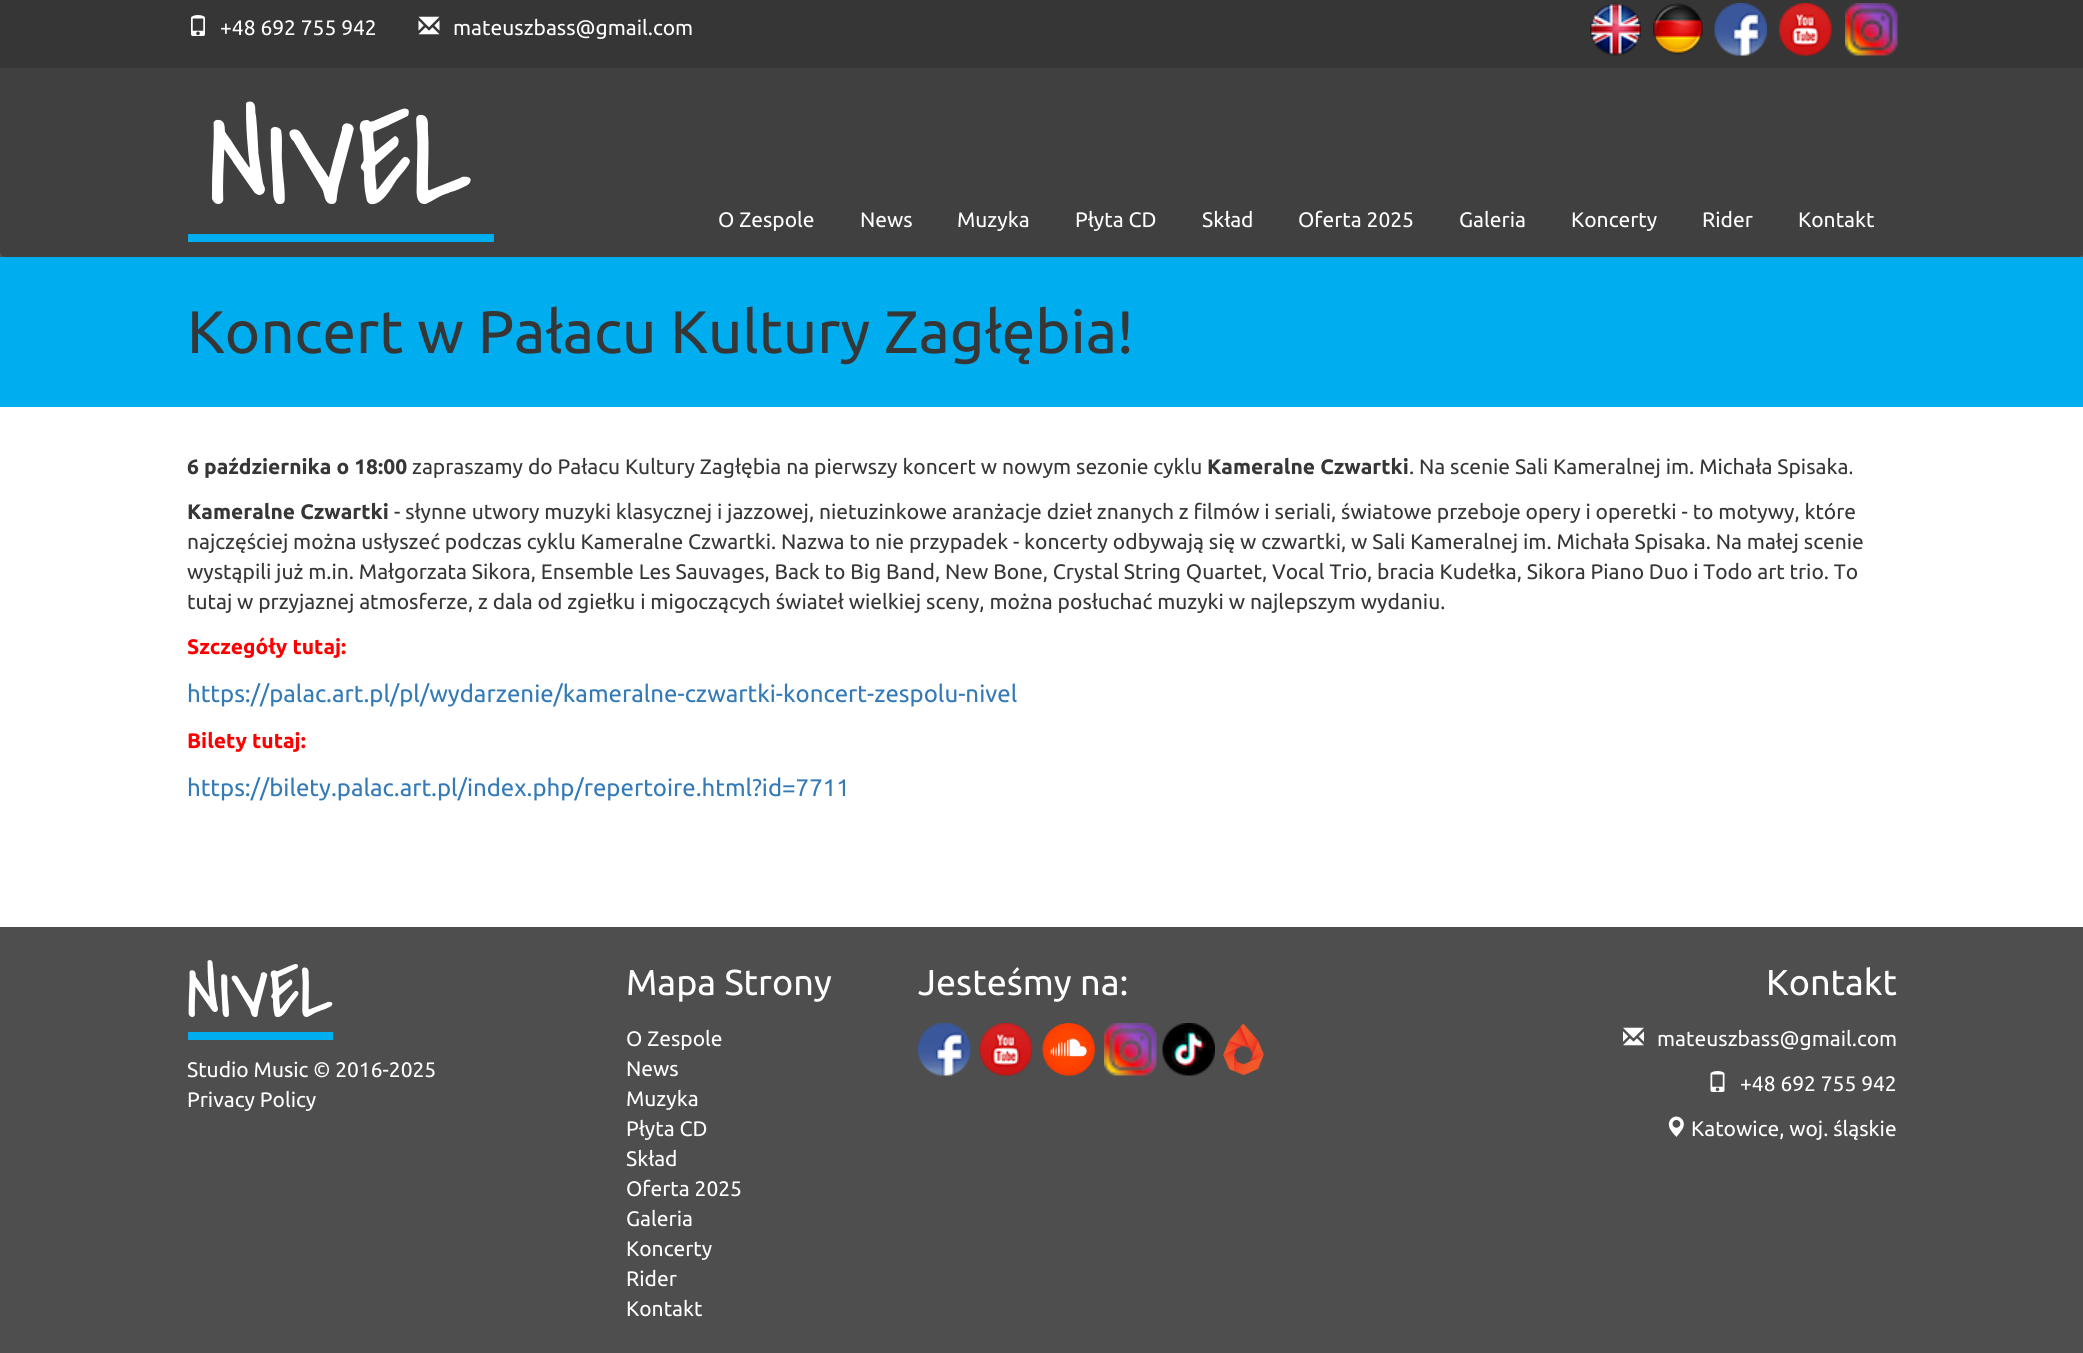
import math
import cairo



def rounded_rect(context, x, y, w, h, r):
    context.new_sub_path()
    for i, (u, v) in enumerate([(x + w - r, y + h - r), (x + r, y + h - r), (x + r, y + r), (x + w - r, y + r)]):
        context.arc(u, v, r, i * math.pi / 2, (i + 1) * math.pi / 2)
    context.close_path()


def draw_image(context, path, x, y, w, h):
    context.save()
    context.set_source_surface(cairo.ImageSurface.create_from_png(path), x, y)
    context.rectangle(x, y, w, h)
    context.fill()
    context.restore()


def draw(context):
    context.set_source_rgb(1, 1, 1)
    context.paint()
    context.set_source_rgb(81 / 255, 81 / 255, 81 / 255)
    context.rectangle(0, 251, 2083, 6)
    context.fill()
    context.set_source_rgb(64 / 255, 64 / 255, 64 / 255)
    rounded_rect(context, 0, -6, 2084, 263, 6)
    context.fill()
    context.set_source_rgb(54 / 255, 54 / 255, 54 / 255)
    context.rectangle(0, 0, 2083, 68)
    context.fill()
    draw_image(context, "images/1.png", 191, 15, 14, 21)
    draw_image(context, "images/2.png", 418, 16, 22, 19)
    draw_image(context, "images/3.png", 1590, 3, 51, 53)
    draw_image(context, "images/4.png", 1653, 3, 50, 52)
    draw_image(context, "images/5.png", 1714, 3, 53, 53)
    draw_image(context, "images/6.png", 1779, 3, 53, 53)
    draw_image(context, "images/7.png", 1845, 3, 53, 53)
    context.set_source_rgb(0, 174 / 255, 239 / 255)
    context.rectangle(188, 234, 306, 8)
    context.fill()
    context.rectangle(0, 257, 2083, 150)
    context.fill()
    context.set_source_rgb(78 / 255, 78 / 255, 78 / 255)
    context.rectangle(0, 927, 2083, 426)
    context.fill()
    context.set_source_rgb(0, 174 / 255, 239 / 255)
    context.rectangle(188, 1032, 145, 8)
    context.fill()
    draw_image(context, "images/8.png", 918, 1023, 53, 53)
    draw_image(context, "images/9.png", 979, 1023, 53, 53)
    draw_image(context, "images/10.png", 1042, 1023, 53, 53)
    draw_image(context, "images/11.png", 1104, 1023, 53, 53)
    draw_image(context, "images/12.png", 1162, 1023, 53, 53)
    draw_image(context, "images/13.png", 1223, 1023, 41, 53)
    draw_image(context, "images/14.png", 1623, 1027, 21, 19)
    draw_image(context, "images/15.png", 1710, 1071, 15, 21)
    draw_image(context, "images/16.png", 1668, 1116, 16, 21)
    context.select_font_face("Ubuntu")
    context.set_font_size(21)
    context.set_source_rgb(1, 1, 1)
    context.move_to(220, 35)
    context.show_text("+48 692 755 942")
    context.move_to(453, 35)
    context.show_text("mateuszbass@gmail.com")
    context.select_font_face("Covered By Your Grace")
    context.set_font_size(135)
    context.move_to(209, 204)
    context.show_text("NIVEL")
    context.select_font_face("Ubuntu")
    context.set_font_size(21)
    context.move_to(718, 227)
    context.show_text("O Zespole")
    context.move_to(860, 227)
    context.show_text("News")
    context.move_to(957, 227)
    context.show_text("Muzyka")
    context.move_to(1075, 227)
    context.show_text("Płyta CD")
    context.move_to(1202, 227)
    context.show_text("Skład")
    context.move_to(1298, 227)
    context.show_text("Oferta 2025")
    context.move_to(1459, 227)
    context.show_text("Galeria")
    context.move_to(1571, 227)
    context.show_text("Koncerty")
    context.move_to(1702, 227)
    context.show_text("Rider")
    context.move_to(1798, 227)
    context.show_text("Kontakt")
    context.set_font_size(60)
    context.set_source_rgb(54 / 255, 54 / 255, 54 / 255)
    context.move_to(187, 353)
    context.show_text("Koncert w Pałacu Kultury Zagłębia!")
    context.select_font_face("Ubuntu", cairo.FontSlant.NORMAL, cairo.FontWeight.BOLD)
    context.set_font_size(21)
    context.move_to(187, 474)
    context.show_text("6 października o 18:00")
    context.select_font_face("Ubuntu")
    context.move_to(412, 474)
    context.show_text("zapraszamy do Pałacu Kultury Zagłębia na pierwszy koncert w nowym sezonie cyklu")
    context.select_font_face("Ubuntu", cairo.FontSlant.NORMAL, cairo.FontWeight.BOLD)
    context.move_to(1207, 474)
    context.show_text("Kameralne Czwartki")
    context.select_font_face("Ubuntu")
    context.move_to(1409, 474)
    context.show_text(". Na scenie Sali Kameralnej im. Michała Spisaka.")
    context.select_font_face("Ubuntu", cairo.FontSlant.NORMAL, cairo.FontWeight.BOLD)
    context.move_to(187, 519)
    context.show_text("Kameralne Czwartki")
    context.select_font_face("Ubuntu")
    context.move_to(394, 519)
    context.show_text("- słynne utwory muzyki klasycznej i jazzowej, nietuzinkowe aranżacje dzieł znanych z filmów i seriali, światowe przeboje opery i operetki - to motywy, które")
    context.move_to(187, 549)
    context.show_text("najczęściej można usłyszeć podczas cyklu Kameralne Czwartki. Nazwa to nie przypadek - koncerty odbywają się w czwartki, w Sali Kameralnej im. Michała Spisaka. Na małej scenie")
    context.move_to(187, 579)
    context.show_text("wystąpili już m.in. Małgorzata Sikora, Ensemble Les Sauvages, Back to Big Band, New Bone, Crystal String Quartet, Vocal Trio, bracia Kudełka, Sikora Piano Duo i Todo art trio. To")
    context.move_to(187, 609)
    context.show_text("tutaj w przyjaznej atmosferze, z dala od zgiełku i migoczących świateł wielkiej sceny, można posłuchać muzyki w najlepszym wydaniu.")
    context.select_font_face("Ubuntu", cairo.FontSlant.NORMAL, cairo.FontWeight.BOLD)
    context.set_source_rgb(1, 0, 0)
    context.move_to(187, 654)
    context.show_text("Szczegóły tutaj:")
    context.select_font_face("Ubuntu")
    context.set_font_size(24)
    context.set_source_rgb(51 / 255, 122 / 255, 183 / 255)
    context.move_to(187, 702)
    context.show_text("https://palac.art.pl/pl/wydarzenie/kameralne-czwartki-koncert-zespolu-nivel")
    context.select_font_face("Ubuntu", cairo.FontSlant.NORMAL, cairo.FontWeight.BOLD)
    context.set_font_size(21)
    context.set_source_rgb(1, 0, 0)
    context.move_to(187, 748)
    context.show_text("Bilety tutaj:")
    context.select_font_face("Ubuntu")
    context.set_font_size(24)
    context.set_source_rgb(51 / 255, 122 / 255, 183 / 255)
    context.move_to(187, 796)
    context.show_text("https://bilety.palac.art.pl/index.php/repertoire.html?id=7711")
    context.select_font_face("Covered By Your Grace")
    context.set_font_size(75)
    context.set_source_rgb(1, 1, 1)
    context.move_to(187, 1017)
    context.show_text("NIVEL")
    context.select_font_face("Ubuntu")
    context.set_font_size(21)
    context.move_to(187, 1077)
    context.show_text("Studio Music © 2016-2025")
    context.move_to(187, 1107)
    context.show_text("Privacy Policy")
    context.set_font_size(36)
    context.move_to(626, 995)
    context.show_text("Mapa Strony")
    context.set_font_size(21)
    context.move_to(626, 1046)
    context.show_text("O Zespole")
    context.move_to(626, 1076)
    context.show_text("News")
    context.move_to(626, 1106)
    context.show_text("Muzyka")
    context.move_to(626, 1136)
    context.show_text("Płyta CD")
    context.move_to(626, 1166)
    context.show_text("Skład")
    context.move_to(626, 1196)
    context.show_text("Oferta 2025")
    context.move_to(626, 1226)
    context.show_text("Galeria")
    context.move_to(626, 1256)
    context.show_text("Koncerty")
    context.move_to(626, 1286)
    context.show_text("Rider")
    context.move_to(626, 1316)
    context.show_text("Kontakt")
    context.set_font_size(36)
    context.move_to(918, 995)
    context.show_text("Jesteśmy na:")
    context.move_to(1766, 995)
    context.show_text("Kontakt")
    context.set_font_size(21)
    context.move_to(1657, 1046)
    context.show_text("mateuszbass@gmail.com")
    context.move_to(1740, 1091)
    context.show_text("+48 692 755 942")
    context.move_to(1691, 1136)
    context.show_text("Katowice, woj. śląskie")


surface = cairo.ImageSurface(cairo.Format.RGB24, 2083, 1353)
context = cairo.Context(surface)
options = cairo.FontOptions()
options.set_hint_metrics(cairo.HintMetrics.OFF)
options.set_hint_style(cairo.HintStyle.NONE)
context.set_font_options(options)
context.set_miter_limit(4)
draw(context)
surface.write_to_png("out.png")
